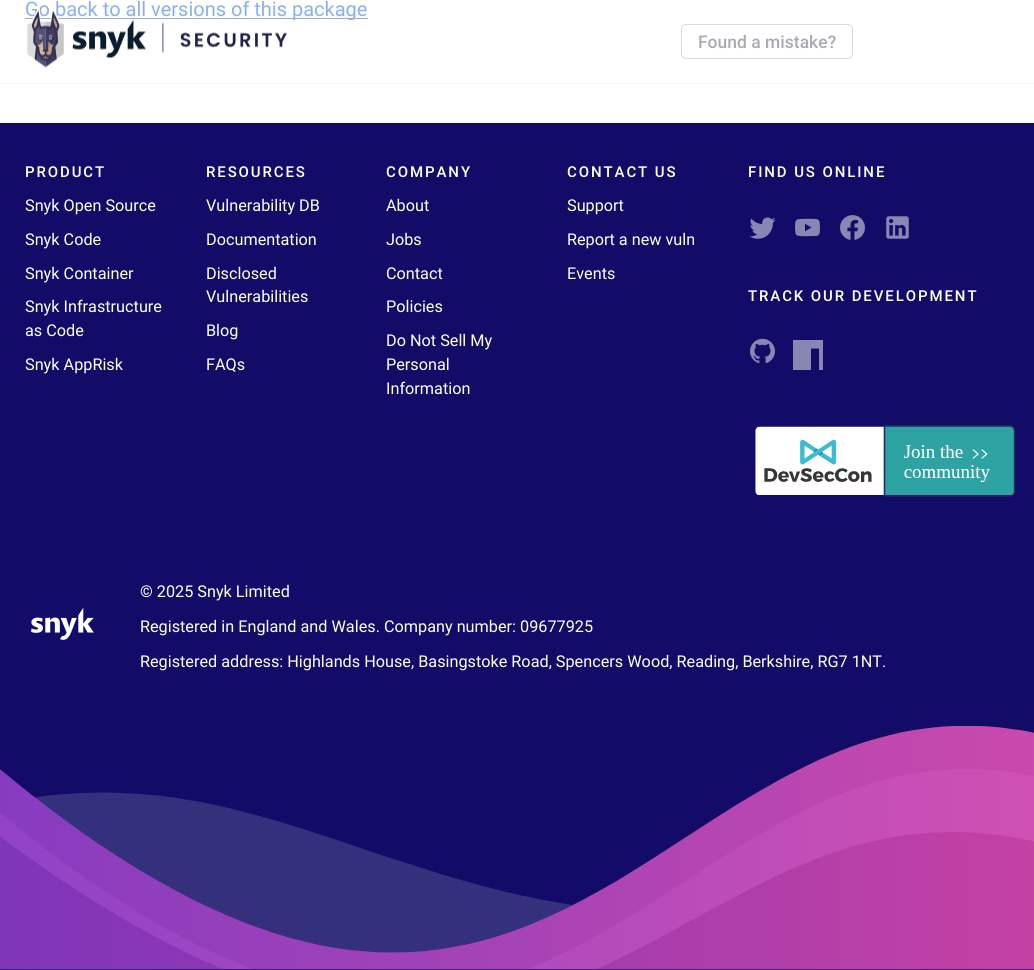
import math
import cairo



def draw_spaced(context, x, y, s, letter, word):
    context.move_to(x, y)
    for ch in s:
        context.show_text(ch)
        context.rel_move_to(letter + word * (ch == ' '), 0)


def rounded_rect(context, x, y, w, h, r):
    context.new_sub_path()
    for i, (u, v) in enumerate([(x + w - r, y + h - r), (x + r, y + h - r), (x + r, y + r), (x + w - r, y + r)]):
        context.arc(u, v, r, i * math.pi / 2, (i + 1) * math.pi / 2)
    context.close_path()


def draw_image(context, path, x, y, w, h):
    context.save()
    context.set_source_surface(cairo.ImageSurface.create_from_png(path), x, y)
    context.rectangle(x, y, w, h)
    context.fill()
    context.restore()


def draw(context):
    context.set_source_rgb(1, 1, 1)
    context.paint()
    context.set_source_rgb(20 / 255, 93 / 255, 235 / 255)
    context.rectangle(25, 18, 343, 1)
    context.fill()
    rounded_rect(context, 681.5, 24.5, 171, 34, 4.5)
    context.set_source_rgb(179 / 255, 178 / 255, 189 / 255)
    context.set_line_width(1)
    context.stroke()
    context.rectangle(-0.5, -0.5, 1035, 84)
    context.set_source_rgba(14 / 255, 63 / 255, 126 / 255, 0.04)
    context.stroke()
    context.set_source_rgb(18 / 255, 12 / 255, 104 / 255)
    context.rectangle(0, 123, 1034, 847)
    context.fill()
    draw_image(context, "images/2.png", 749, 217, 27, 22)
    draw_image(context, "images/3.png", 795, 218, 25, 19)
    draw_image(context, "images/4.png", 840, 215, 25, 25)
    draw_image(context, "images/5.png", 886, 216, 23, 23)
    draw_image(context, "images/6.png", 750, 338, 25, 26)
    context.save()
    context.rectangle(793, 340, 30, 30)
    context.clip()
    context.set_source_rgb(137 / 255, 134 / 255, 180 / 255)
    context.new_path()
    context.move_to(792.5, 376)
    context.line_to(811, 376)
    context.line_to(811, 348.5)
    context.line_to(819, 348.5)
    context.line_to(819, 376)
    context.line_to(827.5, 376)
    context.line_to(827.5, 340)
    context.line_to(792.5, 340)
    context.close_path()
    context.fill()
    context.restore()
    draw_image(context, "images/7.png", 755, 425, 261, 72)
    draw_image(context, "images/8.png", 31, 607, 63, 33)
    draw_image(context, "images/9.png", 0, 726, 1034, 244)
    context.select_font_face("Roboto")
    context.set_font_size(20)
    context.set_source_rgb(20 / 255, 93 / 255, 235 / 255)
    context.move_to(25, 16)
    context.show_text("Go back to all versions of this package")
    context.select_font_face("Roboto Medium")
    context.set_font_size(17.5)
    context.set_source_rgb(85 / 255, 84 / 255, 99 / 255)
    context.move_to(698, 48)
    context.show_text("Found a mistake?")
    context.set_source_rgba(1, 1, 1, 0.5)
    context.rectangle(25, 0, 828, 59)
    context.fill()
    draw_image(context, "images/1.png", 27, 8, 260, 60)
    context.set_font_size(15)
    context.set_source_rgb(1, 1, 1)
    draw_spaced(context, 25, 177, "PRODUCT", 1.9, 0)
    context.select_font_face("Roboto")
    context.set_font_size(16.25)
    context.move_to(25, 211)
    context.show_text("Snyk Open Source")
    context.move_to(25, 245)
    context.show_text("Snyk Code")
    context.move_to(25, 279)
    context.show_text("Snyk Container")
    context.move_to(25, 312)
    context.show_text("Snyk Infrastructure")
    context.move_to(25, 336)
    context.show_text("as Code")
    context.move_to(25, 370)
    context.show_text("Snyk AppRisk")
    context.select_font_face("Roboto Medium")
    context.set_font_size(15)
    draw_spaced(context, 206, 177, "RESOURCES", 1.9, 0)
    context.select_font_face("Roboto")
    context.set_font_size(16.25)
    context.move_to(206, 211)
    context.show_text("Vulnerability DB")
    context.move_to(206, 245)
    context.show_text("Documentation")
    context.move_to(206, 279)
    context.show_text("Disclosed")
    context.move_to(206, 302)
    context.show_text("Vulnerabilities")
    context.move_to(206, 336)
    context.show_text("Blog")
    context.move_to(206, 370)
    context.show_text("FAQs")
    context.select_font_face("Roboto Medium")
    context.set_font_size(15)
    draw_spaced(context, 386, 177, "COMPANY", 1.9, 0)
    context.select_font_face("Roboto")
    context.set_font_size(16.25)
    context.move_to(386, 211)
    context.show_text("About")
    context.move_to(386, 245)
    context.show_text("Jobs")
    context.move_to(386, 279)
    context.show_text("Contact")
    context.move_to(386, 312)
    context.show_text("Policies")
    context.move_to(386, 346)
    context.show_text("Do Not Sell My")
    context.move_to(386, 370)
    context.show_text("Personal")
    context.move_to(386, 394)
    context.show_text("Information")
    context.select_font_face("Roboto Medium")
    context.set_font_size(15)
    draw_spaced(context, 567, 177, "CONTACT US", 1.9, 0)
    context.select_font_face("Roboto")
    context.set_font_size(16.25)
    context.move_to(567, 211)
    context.show_text("Support")
    context.move_to(567, 245)
    context.show_text("Report a new vuln")
    context.move_to(567, 279)
    context.show_text("Events")
    context.select_font_face("Roboto Medium")
    context.set_font_size(15)
    draw_spaced(context, 748, 177, "FIND US ONLINE", 1.9, 0)
    draw_spaced(context, 748, 301, "TRACK OUR DEVELOPMENT", 1.9, 0)
    context.select_font_face("Roboto")
    context.set_font_size(16.25)
    context.move_to(140, 597)
    context.show_text("© 2025 Snyk Limited")
    context.move_to(140, 632)
    context.show_text("Registered in England and Wales. Company number: 09677925")
    context.move_to(140, 667)
    context.show_text("Registered address: Highlands House, Basingstoke Road, Spencers Wood, Reading, Berkshire, RG7 1NT.")


surface = cairo.ImageSurface(cairo.Format.RGB24, 1034, 970)
context = cairo.Context(surface)
options = cairo.FontOptions()
options.set_hint_metrics(cairo.HintMetrics.OFF)
options.set_hint_style(cairo.HintStyle.NONE)
context.set_font_options(options)
context.set_miter_limit(4)
draw(context)
surface.write_to_png("out.png")
